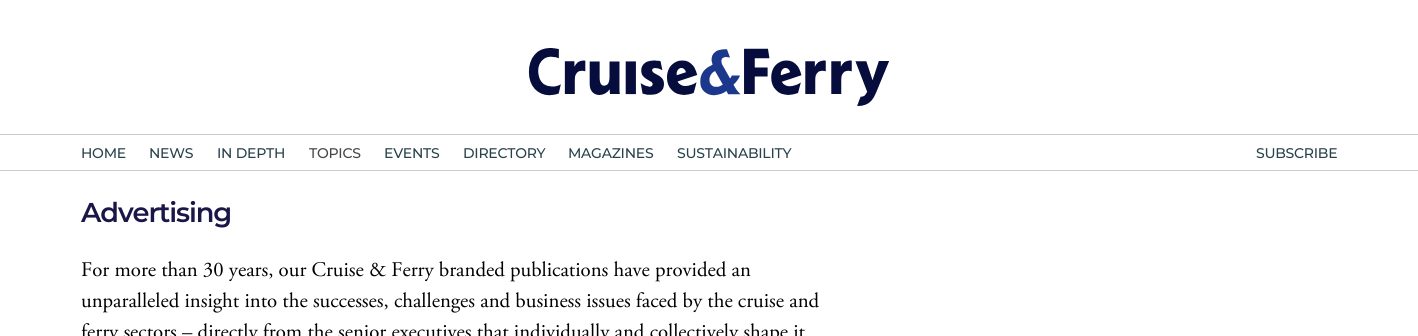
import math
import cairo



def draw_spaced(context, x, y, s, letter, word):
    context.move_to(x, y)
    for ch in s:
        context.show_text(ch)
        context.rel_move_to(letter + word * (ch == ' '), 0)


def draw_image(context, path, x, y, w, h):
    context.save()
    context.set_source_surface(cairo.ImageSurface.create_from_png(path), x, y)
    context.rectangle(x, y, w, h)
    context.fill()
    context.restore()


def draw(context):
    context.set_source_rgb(1, 1, 1)
    context.paint()
    draw_image(context, "images/1.png", 528, 48, 361, 58)
    context.set_source_rgb(204 / 255, 204 / 255, 204 / 255)
    context.rectangle(0, 134, 1418, 1)
    context.fill()
    context.rectangle(0, 170, 1418, 1)
    context.fill()
    context.select_font_face("Montserrat Medium")
    context.set_font_size(14)
    context.set_source_rgb(40 / 255, 66 / 255, 75 / 255)
    draw_spaced(context, 81, 158, "HOME", -0.25, 0)
    draw_spaced(context, 149, 158, "NEWS", -0.25, 0)
    draw_spaced(context, 217, 158, "IN DEPTH", -0.25, 0)
    context.set_source_rgb(70 / 255, 70 / 255, 70 / 255)
    draw_spaced(context, 309, 158, "TOPICS", -0.25, 0)
    context.set_source_rgb(40 / 255, 66 / 255, 75 / 255)
    draw_spaced(context, 384, 158, "EVENTS", -0.25, 0)
    draw_spaced(context, 463, 158, "DIRECTORY", -0.25, 0)
    draw_spaced(context, 568, 158, "MAGAZINES", -0.25, 0)
    draw_spaced(context, 677, 158, "SUSTAINABILITY", -0.25, 0)
    draw_spaced(context, 1256, 158, "SUBSCRIBE", -0.25, 0)
    context.select_font_face("Montserrat SemiBold")
    context.set_font_size(27.25)
    context.set_source_rgb(26 / 255, 23 / 255, 72 / 255)
    draw_spaced(context, 81, 222, "Advertising", -1.1, 0)
    context.select_font_face("Adobe Garamond")
    context.set_font_size(20.8)
    context.set_source_rgb(0, 0, 0)
    context.move_to(81, 276)
    context.show_text("For more than 30 years, our Cruise & Ferry branded publications have provided an")
    context.move_to(81, 307)
    context.show_text("unparalleled insight into the successes, challenges and business issues faced by the cruise and")
    context.move_to(81, 338)
    context.show_text("ferry sectors – directly from the senior executives that individually and collectively shape it")


surface = cairo.ImageSurface(cairo.Format.RGB24, 1418, 336)
context = cairo.Context(surface)
options = cairo.FontOptions()
options.set_hint_metrics(cairo.HintMetrics.OFF)
options.set_hint_style(cairo.HintStyle.NONE)
context.set_font_options(options)
context.set_miter_limit(4)
draw(context)
surface.write_to_png("out.png")
